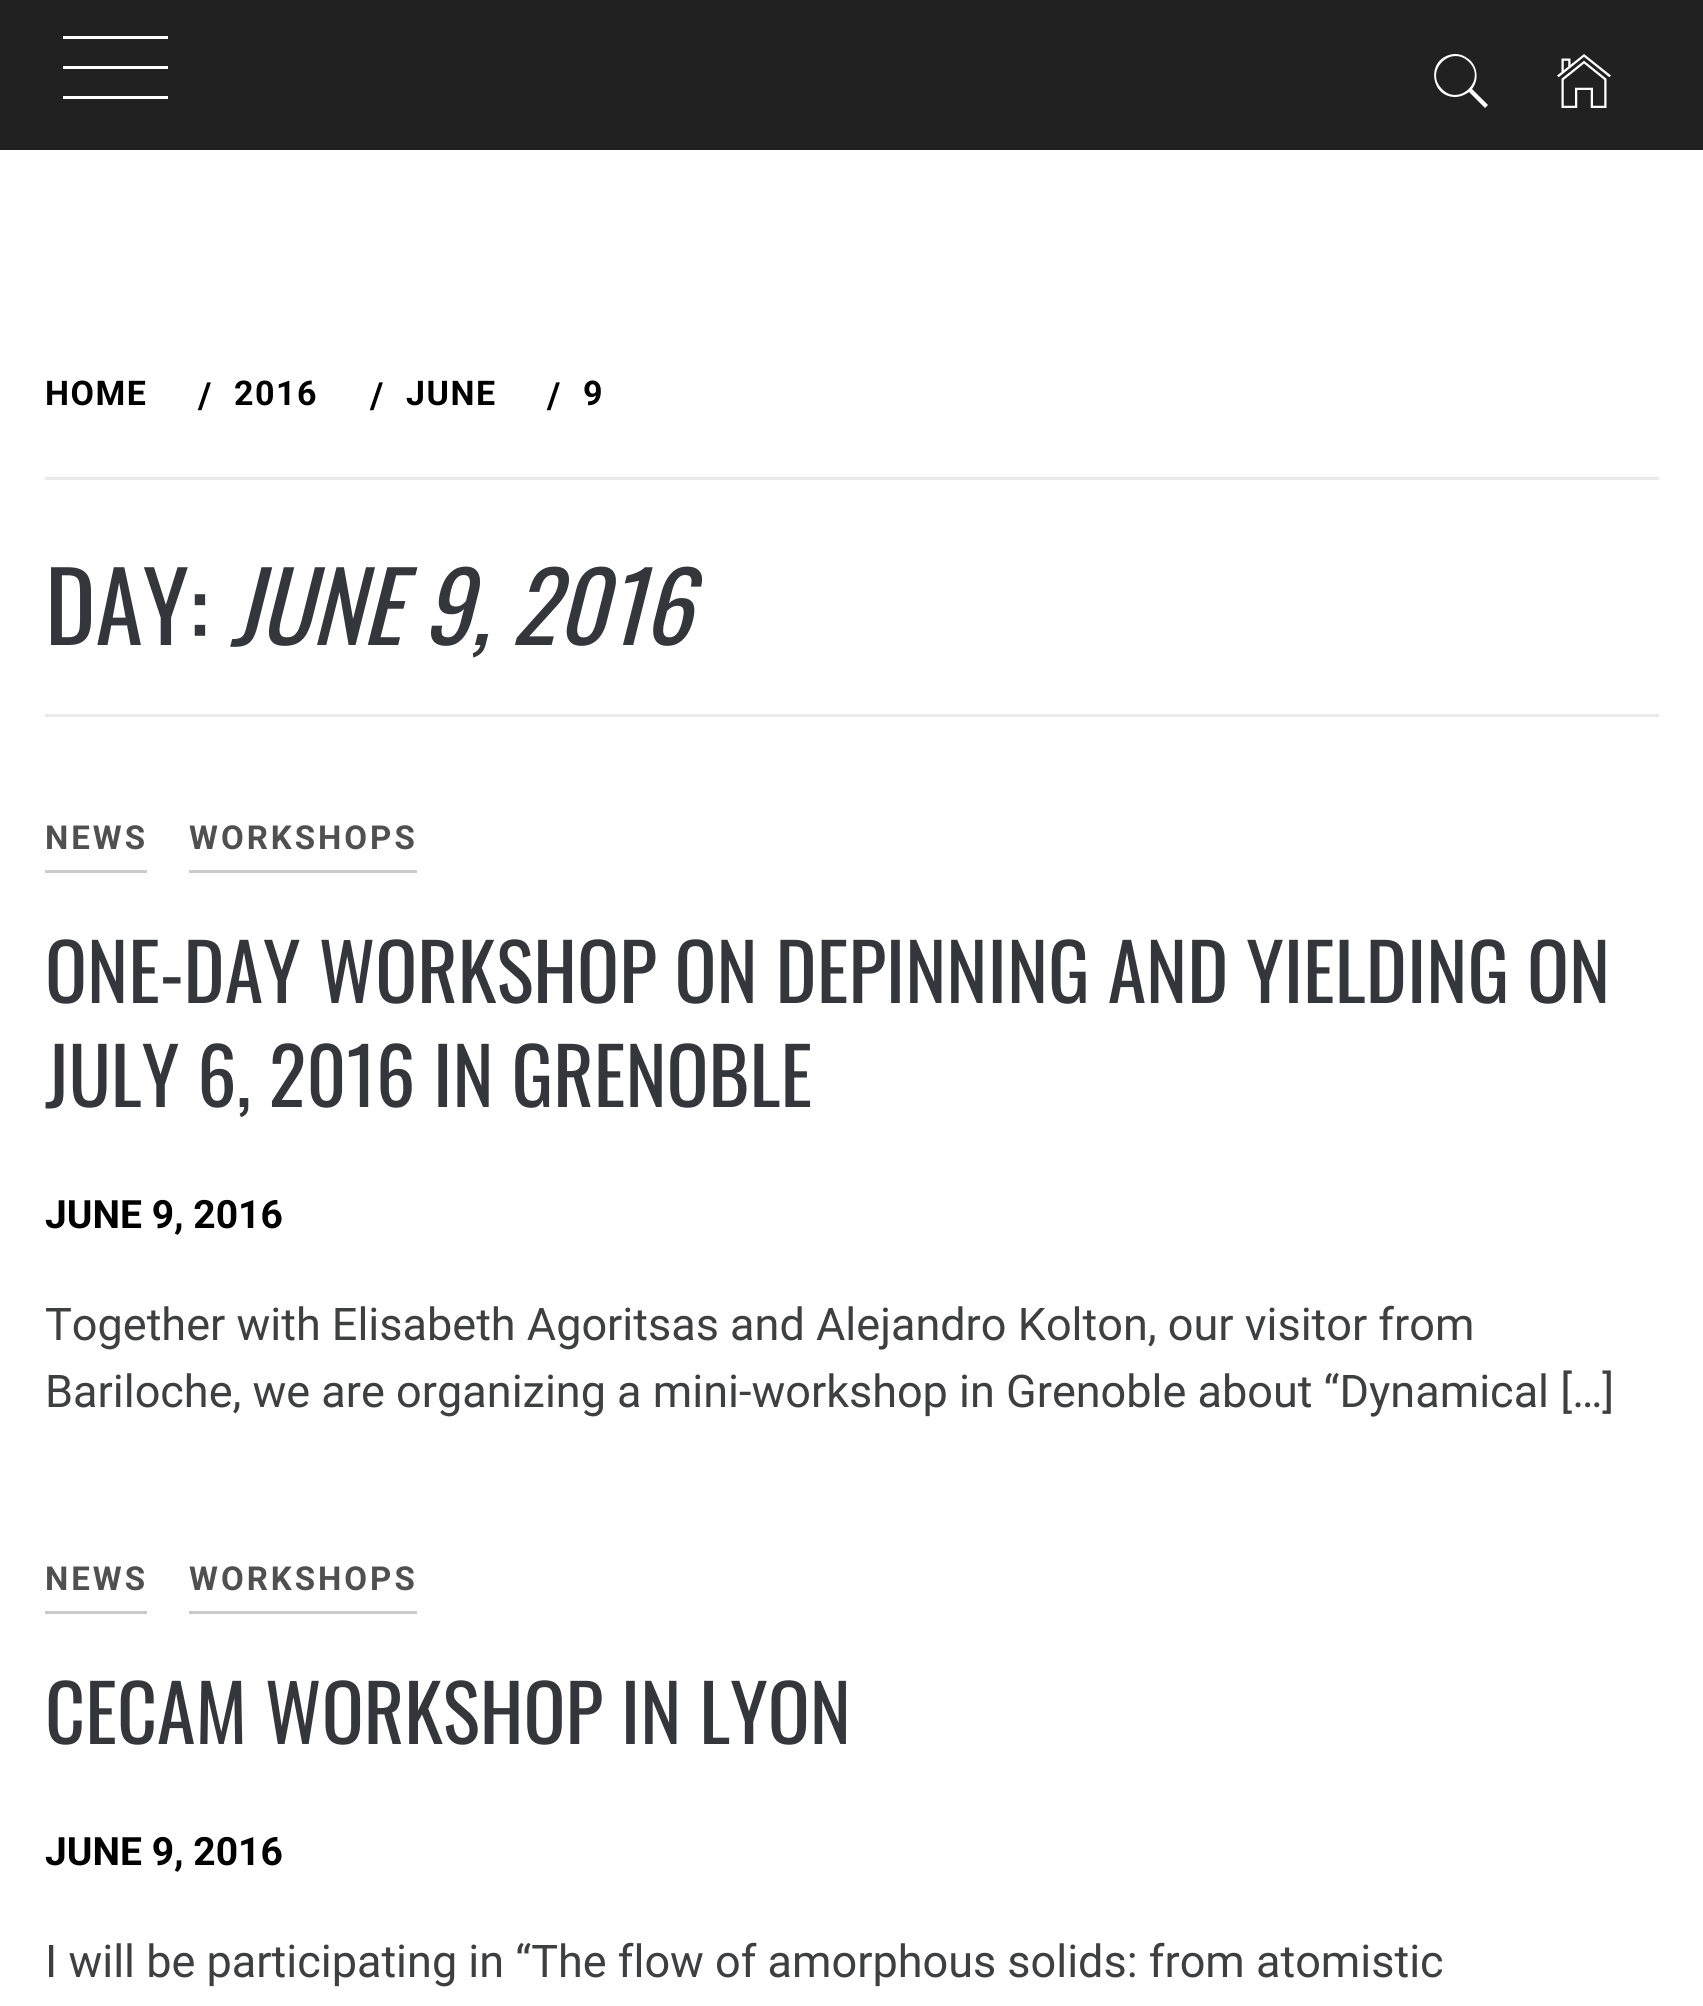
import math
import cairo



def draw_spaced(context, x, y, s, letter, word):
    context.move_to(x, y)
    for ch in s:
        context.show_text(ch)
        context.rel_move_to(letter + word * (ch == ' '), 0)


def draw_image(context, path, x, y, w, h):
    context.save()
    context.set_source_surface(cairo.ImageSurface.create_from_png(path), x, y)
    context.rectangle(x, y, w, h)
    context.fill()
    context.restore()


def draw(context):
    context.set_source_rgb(1, 1, 1)
    context.paint()
    context.set_source_rgb(33 / 255, 33 / 255, 33 / 255)
    context.rectangle(0, 0, 1703, 150)
    context.fill()
    context.set_source_rgb(1, 1, 1)
    context.rectangle(63, 36, 105, 3)
    context.fill()
    context.rectangle(63, 66, 105, 3)
    context.fill()
    context.rectangle(63, 96, 105, 3)
    context.fill()
    context.new_path()
    context.move_to(1488, 105)
    context.line_to(1485, 108)
    context.line_to(1469, 92)
    context.curve_to(1465, 95, 1460, 97, 1455, 97)
    context.curve_to(1431, 97, 1426, 62, 1449, 55)
    context.curve_to(1455, 53, 1462, 54, 1467, 58)
    context.curve_to(1477, 64, 1480, 79, 1472, 89)
    context.close_path()
    context.move_to(1442, 89)
    context.curve_to(1459, 107, 1487, 80, 1469, 62)
    context.curve_to(1451, 44, 1424, 71, 1442, 89)
    context.close_path()
    context.fill()
    draw_image(context, "images/1.png", 1557, 54, 54, 54)
    context.set_source_rgb(234 / 255, 234 / 255, 234 / 255)
    context.rectangle(45, 714, 1614, 3)
    context.fill()
    context.rectangle(45, 477, 1614, 3)
    context.fill()
    context.set_source_rgb(202 / 255, 202 / 255, 202 / 255)
    context.rectangle(45, 870, 102, 3)
    context.fill()
    context.rectangle(189, 870, 228, 3)
    context.fill()
    context.rectangle(45, 1611, 102, 3)
    context.fill()
    context.rectangle(189, 1611, 228, 3)
    context.fill()
    context.select_font_face("Roboto", cairo.FontSlant.NORMAL, cairo.FontWeight.BOLD)
    context.set_font_size(34)
    context.set_source_rgb(0, 0, 0)
    draw_spaced(context, 45, 405, "HOME", 1.5, 0)
    context.set_font_size(36)
    draw_spaced(context, 198, 408, "/", 1.5, 0)
    context.set_font_size(34)
    draw_spaced(context, 234, 405, "2016", 1.5, 0)
    context.set_font_size(36)
    draw_spaced(context, 370, 408, "/", 1.5, 0)
    context.set_font_size(34)
    draw_spaced(context, 406, 405, "JUNE", 1.5, 0)
    context.set_font_size(36)
    draw_spaced(context, 547, 408, "/", 1.5, 0)
    context.set_font_size(34)
    draw_spaced(context, 583, 405, "9", 1.5, 0)
    context.select_font_face("Oswald")
    context.set_font_size(96)
    context.set_source_rgb(51 / 255, 54 / 255, 59 / 255)
    context.move_to(45, 645)
    context.show_text("DAY:")
    context.select_font_face("Oswald", cairo.FontSlant.ITALIC)
    context.move_to(230, 645)
    context.show_text("JUNE 9, 2016")
    context.select_font_face("Roboto", cairo.FontSlant.NORMAL, cairo.FontWeight.BOLD)
    context.set_font_size(33)
    context.set_source_rgb(80 / 255, 80 / 255, 80 / 255)
    draw_spaced(context, 45, 849, "NEWS", 3, 0)
    draw_spaced(context, 189, 849, "WORKSHOPS", 3, 0)
    context.select_font_face("Oswald")
    context.set_font_size(78)
    context.set_source_rgb(51 / 255, 54 / 255, 59 / 255)
    context.move_to(45, 1003)
    context.show_text("ONE-DAY WORKSHOP ON DEPINNING AND YIELDING ON")
    context.move_to(45, 1107)
    context.show_text("JULY 6, 2016 IN GRENOBLE")
    context.select_font_face("Roboto", cairo.FontSlant.NORMAL, cairo.FontWeight.BOLD)
    context.set_font_size(39)
    context.set_source_rgb(0, 0, 0)
    context.move_to(45, 1228)
    context.show_text("JUNE 9, 2016")
    context.select_font_face("Roboto")
    context.set_font_size(45)
    context.set_source_rgb(62 / 255, 63 / 255, 64 / 255)
    context.move_to(45, 1340)
    context.show_text("Together with Elisabeth Agoritsas and Alejandro Kolton, our visitor from")
    context.move_to(45, 1407)
    context.show_text("Bariloche, we are organizing a mini-workshop in Grenoble about “Dynamical […]")
    context.select_font_face("Roboto", cairo.FontSlant.NORMAL, cairo.FontWeight.BOLD)
    context.set_font_size(33)
    context.set_source_rgb(80 / 255, 80 / 255, 80 / 255)
    draw_spaced(context, 45, 1590, "NEWS", 3, 0)
    draw_spaced(context, 189, 1590, "WORKSHOPS", 3, 0)
    context.select_font_face("Oswald")
    context.set_font_size(78)
    context.set_source_rgb(51 / 255, 54 / 255, 59 / 255)
    context.move_to(45, 1744)
    context.show_text("CECAM WORKSHOP IN LYON")
    context.select_font_face("Roboto", cairo.FontSlant.NORMAL, cairo.FontWeight.BOLD)
    context.set_font_size(39)
    context.set_source_rgb(0, 0, 0)
    context.move_to(45, 1865)
    context.show_text("JUNE 9, 2016")
    context.select_font_face("Roboto")
    context.set_font_size(45)
    context.set_source_rgb(62 / 255, 63 / 255, 64 / 255)
    context.move_to(45, 1977)
    context.show_text("I will be participating in “The flow of amorphous solids: from atomistic")


surface = cairo.ImageSurface(cairo.Format.RGB24, 1703, 2006)
context = cairo.Context(surface)
options = cairo.FontOptions()
options.set_hint_metrics(cairo.HintMetrics.OFF)
options.set_hint_style(cairo.HintStyle.NONE)
context.set_font_options(options)
context.set_miter_limit(4)
draw(context)
surface.write_to_png("out.png")
